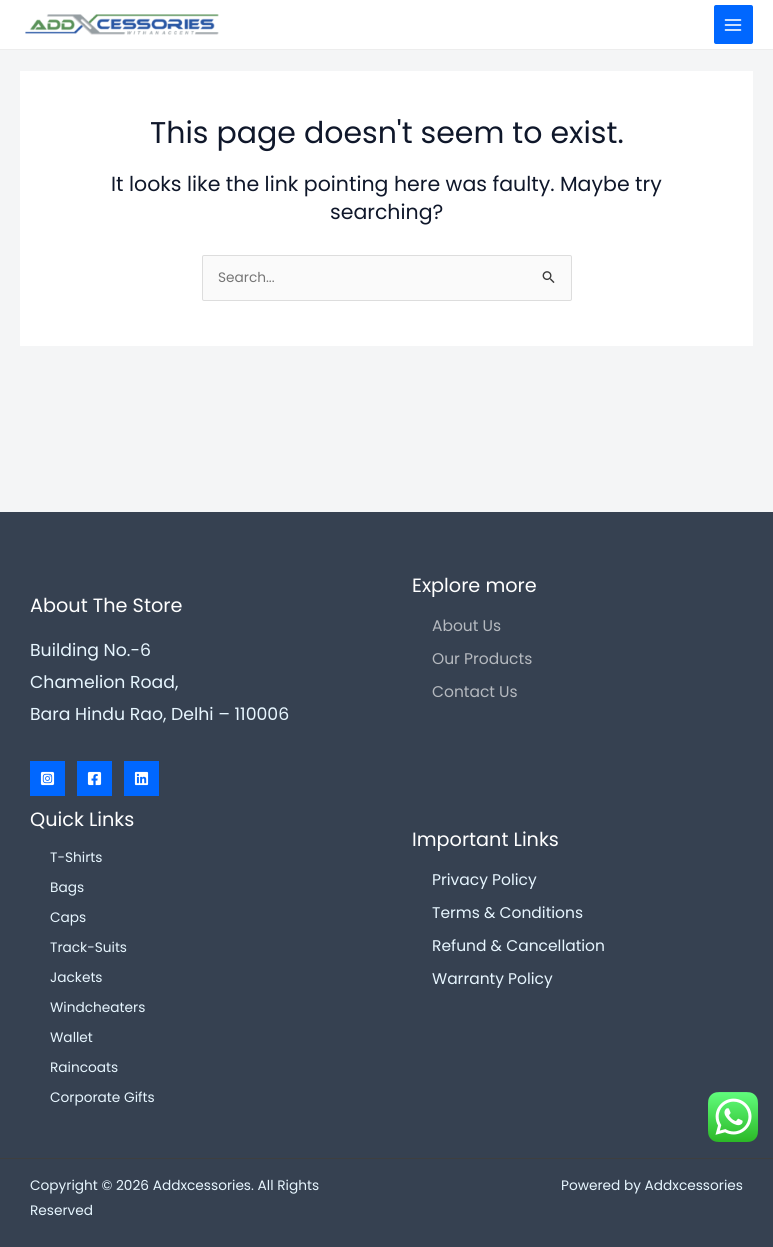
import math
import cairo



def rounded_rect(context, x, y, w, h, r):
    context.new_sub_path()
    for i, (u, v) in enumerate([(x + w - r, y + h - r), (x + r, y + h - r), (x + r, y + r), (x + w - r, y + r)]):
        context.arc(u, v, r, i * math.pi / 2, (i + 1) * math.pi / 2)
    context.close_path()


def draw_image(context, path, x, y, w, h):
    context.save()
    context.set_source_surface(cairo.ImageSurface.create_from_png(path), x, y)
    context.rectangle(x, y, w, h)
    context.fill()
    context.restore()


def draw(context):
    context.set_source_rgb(244 / 255, 245 / 255, 246 / 255)
    context.paint()
    context.set_source_rgb(1, 1, 1)
    context.rectangle(0, 0, 773, 49)
    context.fill()
    context.set_source_rgb(237 / 255, 237 / 255, 237 / 255)
    context.rectangle(0, 49, 773, 1)
    context.fill()
    draw_image(context, "images/1.png", 25, 14, 194, 21)
    context.set_source_rgb(0, 103 / 255, 1)
    rounded_rect(context, 714, 5, 39, 39, 2)
    context.fill()
    draw_image(context, "images/2.png", 724, 19, 18, 12)
    context.set_source_rgb(1, 1, 1)
    context.rectangle(20, 71, 733, 275)
    context.fill()
    context.set_source_rgb(250 / 255, 250 / 255, 250 / 255)
    rounded_rect(context, 202.5, 255.5, 369, 45, 1.5)
    context.fill_preserve()
    context.set_source_rgb(221 / 255, 221 / 255, 221 / 255)
    context.set_line_width(1)
    context.stroke()
    draw_image(context, "images/3.png", 542, 271, 13, 12)
    context.set_source_rgb(54 / 255, 65 / 255, 81 / 255)
    context.rectangle(0, 512, 773, 646)
    context.fill()
    context.set_source_rgb(0, 103 / 255, 1)
    context.rectangle(30, 761, 35, 35)
    context.fill()
    draw_image(context, "images/4.png", 40, 771, 15, 15)
    context.rectangle(77, 761, 35, 35)
    context.fill()
    draw_image(context, "images/5.png", 87, 771, 15, 15)
    context.rectangle(124, 761, 35, 35)
    context.fill()
    draw_image(context, "images/6.png", 134, 771, 15, 15)
    context.set_source_rgb(54 / 255, 65 / 255, 81 / 255)
    context.rectangle(0, 1159, 773, 88)
    context.fill()
    context.set_source_rgb(63 / 255, 63 / 255, 63 / 255)
    context.rectangle(0, 1158, 773, 1)
    context.fill()
    draw_image(context, "images/7.png", 708, 1092, 50, 50)
    context.select_font_face("Poppins")
    context.set_font_size(30)
    context.set_source_rgb(15 / 255, 23 / 255, 42 / 255)
    context.move_to(150, 143)
    context.show_text("This page doesn't seem to exist.")
    context.set_font_size(20.5)
    context.move_to(111, 191)
    context.show_text("It looks like the link pointing here was faulty. Maybe try")
    context.move_to(330, 219)
    context.show_text("searching?")
    context.set_font_size(13.7)
    context.set_source_rgb(117 / 255, 117 / 255, 117 / 255)
    context.move_to(218, 282)
    context.show_text("Search...")
    context.set_font_size(19.25)
    context.set_source_rgb(1, 1, 1)
    context.move_to(30, 612)
    context.show_text("About The Store")
    context.set_font_size(17.3)
    context.set_source_rgb(231 / 255, 246 / 255, 1)
    context.move_to(30, 656)
    context.show_text("Building No.-6")
    context.move_to(30, 688)
    context.show_text("Chamelion Road,")
    context.move_to(30, 720)
    context.show_text("Bara Hindu Rao, Delhi – 110006")
    context.set_font_size(19.25)
    context.set_source_rgb(1, 1, 1)
    context.move_to(412, 592)
    context.show_text("Explore more")
    context.set_font_size(15.5)
    context.set_source_rgb(181 / 255, 185 / 255, 191 / 255)
    context.move_to(432, 631)
    context.show_text("About Us")
    context.move_to(432, 664)
    context.show_text("Our Products")
    context.move_to(432, 697)
    context.show_text("Contact Us")
    context.set_font_size(19.25)
    context.set_source_rgb(1, 1, 1)
    context.move_to(30, 826)
    context.show_text("Quick Links")
    context.set_font_size(13.7)
    context.set_source_rgb(231 / 255, 246 / 255, 1)
    context.move_to(50, 862)
    context.show_text("T-Shirts")
    context.move_to(50, 892)
    context.show_text("Bags")
    context.move_to(50, 922)
    context.show_text("Caps")
    context.move_to(50, 952)
    context.show_text("Track-Suits")
    context.move_to(50, 982)
    context.show_text("Jackets")
    context.move_to(50, 1012)
    context.show_text("Windcheaters")
    context.move_to(50, 1042)
    context.show_text("Wallet")
    context.move_to(50, 1072)
    context.show_text("Raincoats")
    context.move_to(50, 1102)
    context.show_text("Corporate Gifts")
    context.set_font_size(19.25)
    context.set_source_rgb(1, 1, 1)
    context.move_to(412, 846)
    context.show_text("Important Links")
    context.set_font_size(15.5)
    context.set_source_rgb(231 / 255, 246 / 255, 1)
    context.move_to(432, 885)
    context.show_text("Privacy Policy")
    context.move_to(432, 918)
    context.show_text("Terms & Conditions")
    context.move_to(432, 951)
    context.show_text("Refund & Cancellation")
    context.move_to(432, 984)
    context.show_text("Warranty Policy")
    context.set_font_size(13.7)
    context.move_to(30, 1190)
    context.show_text("Copyright © 2026 Addxcessories. All Rights")
    context.move_to(30, 1215)
    context.show_text("Reserved")
    context.move_to(561, 1190)
    context.show_text("Powered by Addxcessories")


surface = cairo.ImageSurface(cairo.Format.RGB24, 773, 1247)
context = cairo.Context(surface)
options = cairo.FontOptions()
options.set_hint_metrics(cairo.HintMetrics.OFF)
options.set_hint_style(cairo.HintStyle.NONE)
context.set_font_options(options)
context.set_miter_limit(4)
draw(context)
surface.write_to_png("out.png")
